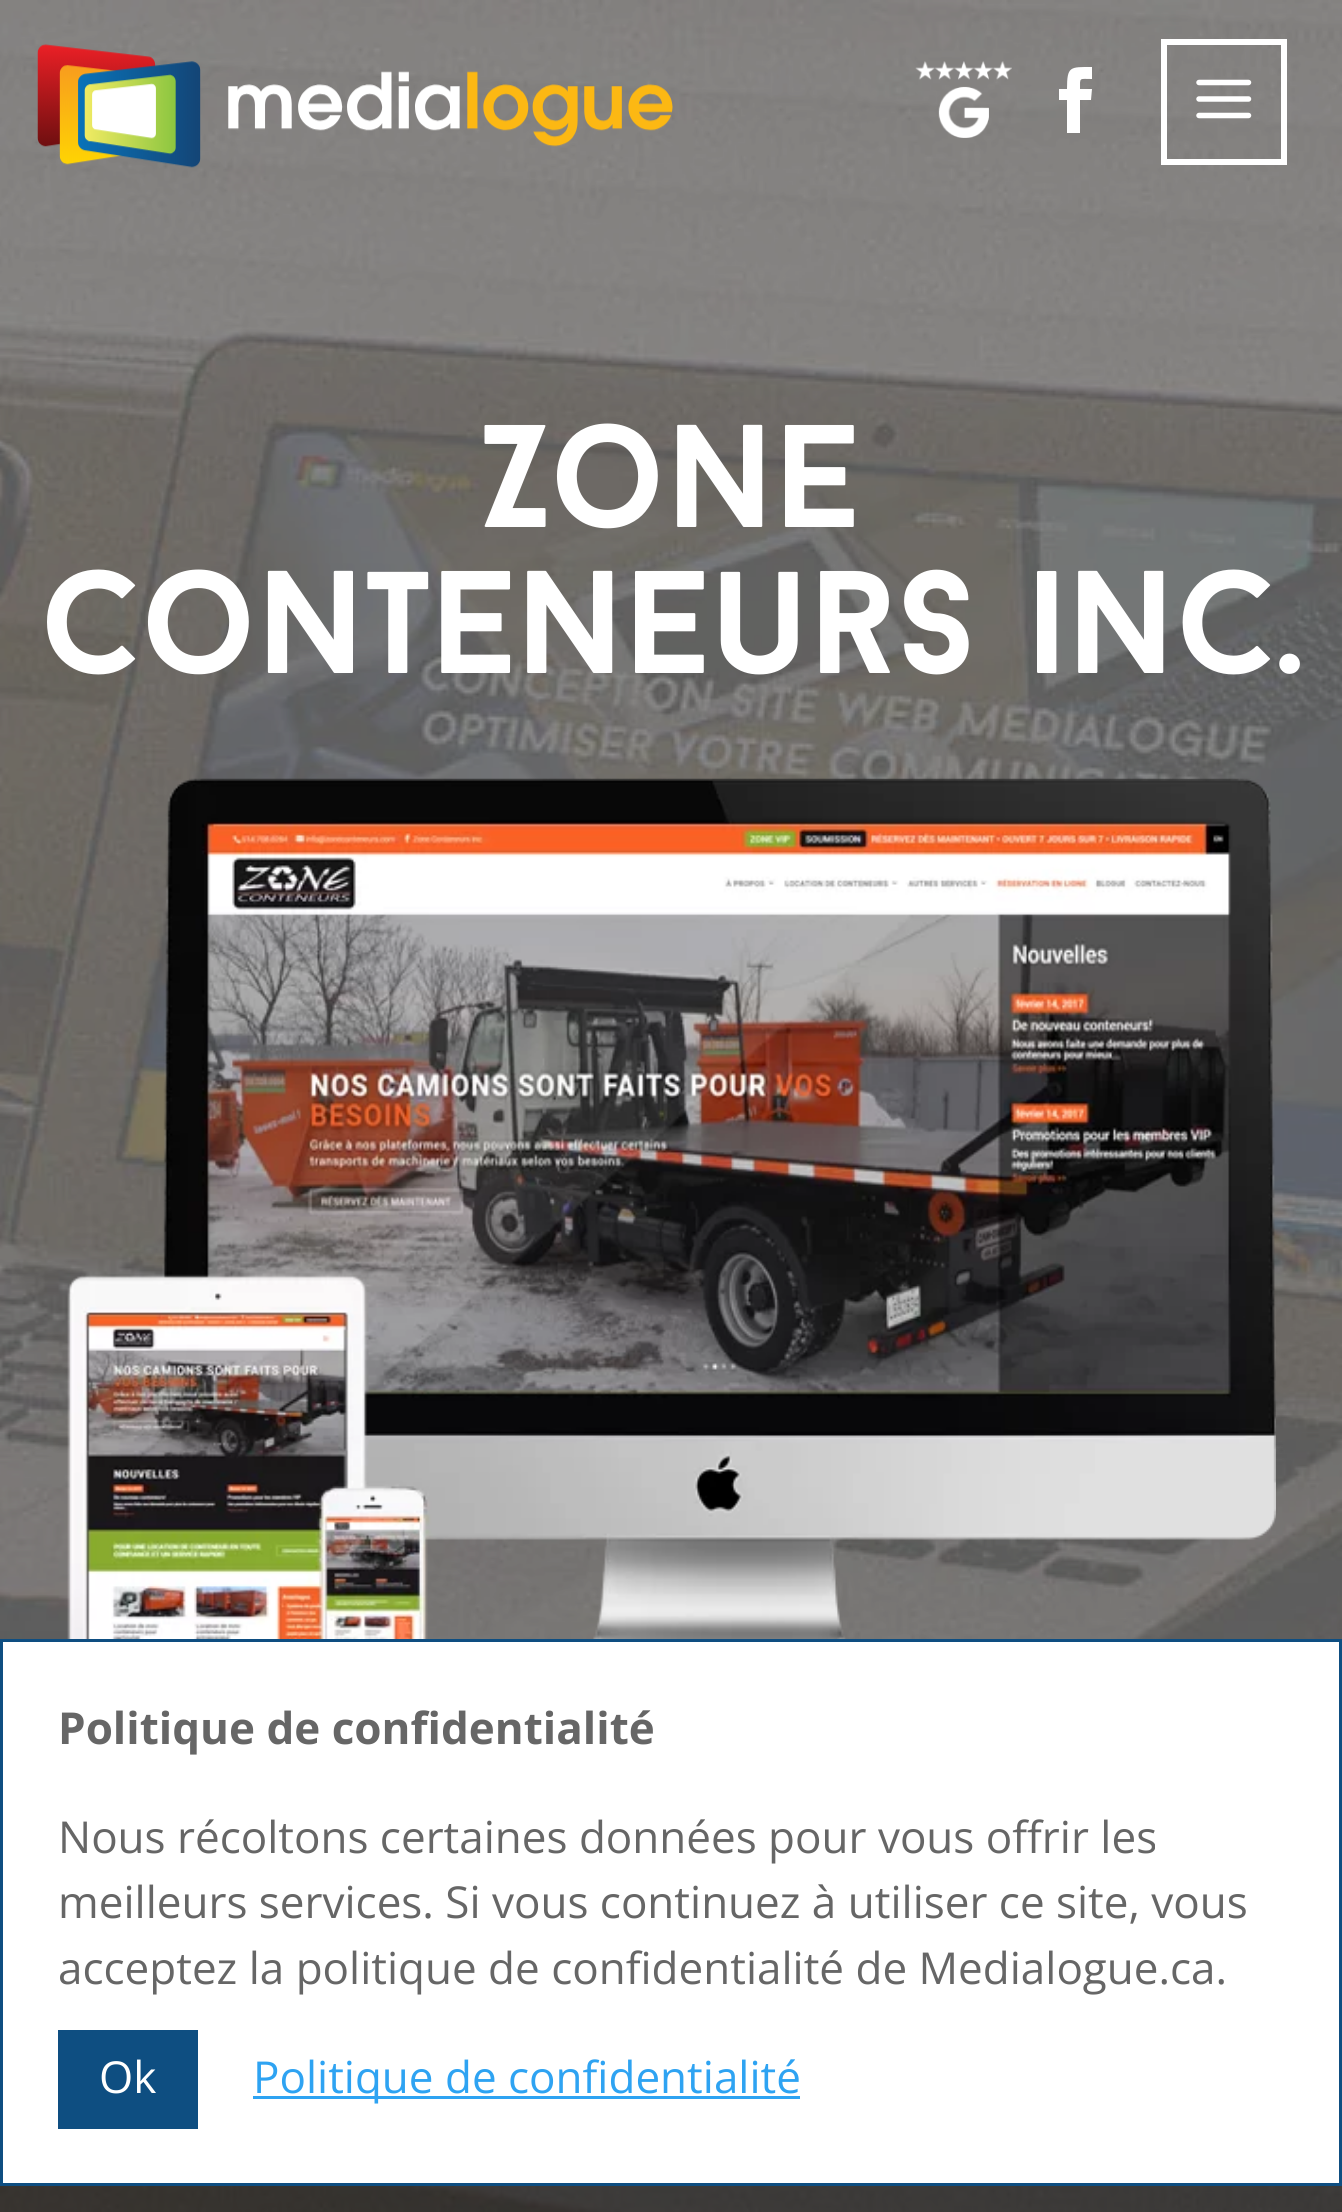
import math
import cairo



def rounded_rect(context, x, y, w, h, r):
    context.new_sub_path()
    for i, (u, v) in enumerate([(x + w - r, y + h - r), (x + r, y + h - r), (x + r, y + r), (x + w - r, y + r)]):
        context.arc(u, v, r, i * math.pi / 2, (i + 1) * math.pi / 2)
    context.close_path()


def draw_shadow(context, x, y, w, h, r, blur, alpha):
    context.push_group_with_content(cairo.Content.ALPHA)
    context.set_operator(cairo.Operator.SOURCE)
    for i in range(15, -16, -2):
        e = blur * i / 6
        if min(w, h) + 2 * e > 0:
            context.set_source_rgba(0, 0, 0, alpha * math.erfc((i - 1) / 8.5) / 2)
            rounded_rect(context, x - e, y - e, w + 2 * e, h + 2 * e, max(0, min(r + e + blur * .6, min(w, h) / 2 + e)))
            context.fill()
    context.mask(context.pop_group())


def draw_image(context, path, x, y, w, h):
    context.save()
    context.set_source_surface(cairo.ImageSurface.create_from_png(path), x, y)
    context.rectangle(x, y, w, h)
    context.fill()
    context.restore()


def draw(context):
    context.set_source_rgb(1, 1, 1)
    context.paint()
    draw_image(context, "images/4.png", 0, 0, 1342, 2212)
    draw_image(context, "images/1.png", 37, 44, 636, 124)
    context.rectangle(1164, 42, 120, 120)
    context.set_source_rgb(1, 1, 1)
    context.set_line_width(6)
    context.stroke()
    draw_image(context, "images/2.png", 1196, 79, 56, 40)
    draw_image(context, "images/3.png", 915, 61, 97, 77)
    context.new_path()
    context.move_to(1067, 133)
    context.line_to(1080, 133)
    context.line_to(1080, 100)
    context.line_to(1091, 100)
    context.line_to(1092, 89)
    context.line_to(1080, 89)
    context.curve_to(1080, 77, 1079, 79, 1092, 79)
    context.line_to(1092, 67)
    context.curve_to(1070, 67, 1067, 66, 1067, 89)
    context.line_to(1059, 89)
    context.line_to(1059, 100)
    context.line_to(1067, 100)
    context.close_path()
    context.fill()
    draw_image(context, "images/5.png", 67, 778, 1209, 861)
    context.set_source_rgb(128 / 255, 128 / 255, 128 / 255)
    draw_shadow(context, 1150, 2010, 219, 165, 6, 7, 1)
    context.set_source_rgb(1, 1, 1)
    context.rectangle(1.5, 1640.5, 1339, 544)
    context.fill_preserve()
    context.set_source_rgb(14 / 255, 78 / 255, 129 / 255)
    context.set_line_width(3)
    context.stroke()
    context.rectangle(58, 2030, 140, 99)
    context.fill()
    context.set_source_rgb(46 / 255, 163 / 255, 242 / 255)
    context.rectangle(253, 2096, 547, 3)
    context.fill()
    context.set_source_rgba(0, 0, 0, 0.5)
    context.rectangle(0, 2186, 1342, 26)
    context.fill()
    context.select_font_face("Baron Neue", cairo.FontSlant.NORMAL, cairo.FontWeight.BOLD)
    context.set_font_size(145.75)
    context.set_source_rgb(1, 1, 1)
    context.move_to(481, 527)
    context.show_text("Zone")
    context.move_to(40, 673)
    context.show_text("Conteneurs inc.")
    context.select_font_face("Open Sans", cairo.FontSlant.NORMAL, cairo.FontWeight.BOLD)
    context.set_font_size(44)
    context.set_source_rgb(102 / 255, 102 / 255, 102 / 255)
    context.move_to(58, 1744)
    context.show_text("Politique de confidentialité")
    context.select_font_face("Open Sans")
    context.move_to(58, 1853)
    context.show_text("Nous récoltons certaines données pour vous offrir les")
    context.move_to(58, 1918)
    context.show_text("meilleurs services. Si vous continuez à utiliser ce site, vous")
    context.move_to(58, 1984)
    context.show_text("acceptez la politique de confidentialité de Medialogue.ca.")
    context.set_source_rgb(1, 1, 1)
    context.move_to(99, 2093)
    context.show_text("Ok")
    context.set_source_rgb(46 / 255, 163 / 255, 242 / 255)
    context.move_to(253, 2093)
    context.show_text("Politique de confidentialité")


surface = cairo.ImageSurface(cairo.Format.RGB24, 1342, 2212)
context = cairo.Context(surface)
options = cairo.FontOptions()
options.set_hint_metrics(cairo.HintMetrics.OFF)
options.set_hint_style(cairo.HintStyle.NONE)
context.set_font_options(options)
context.set_miter_limit(4)
draw(context)
surface.write_to_png("out.png")
